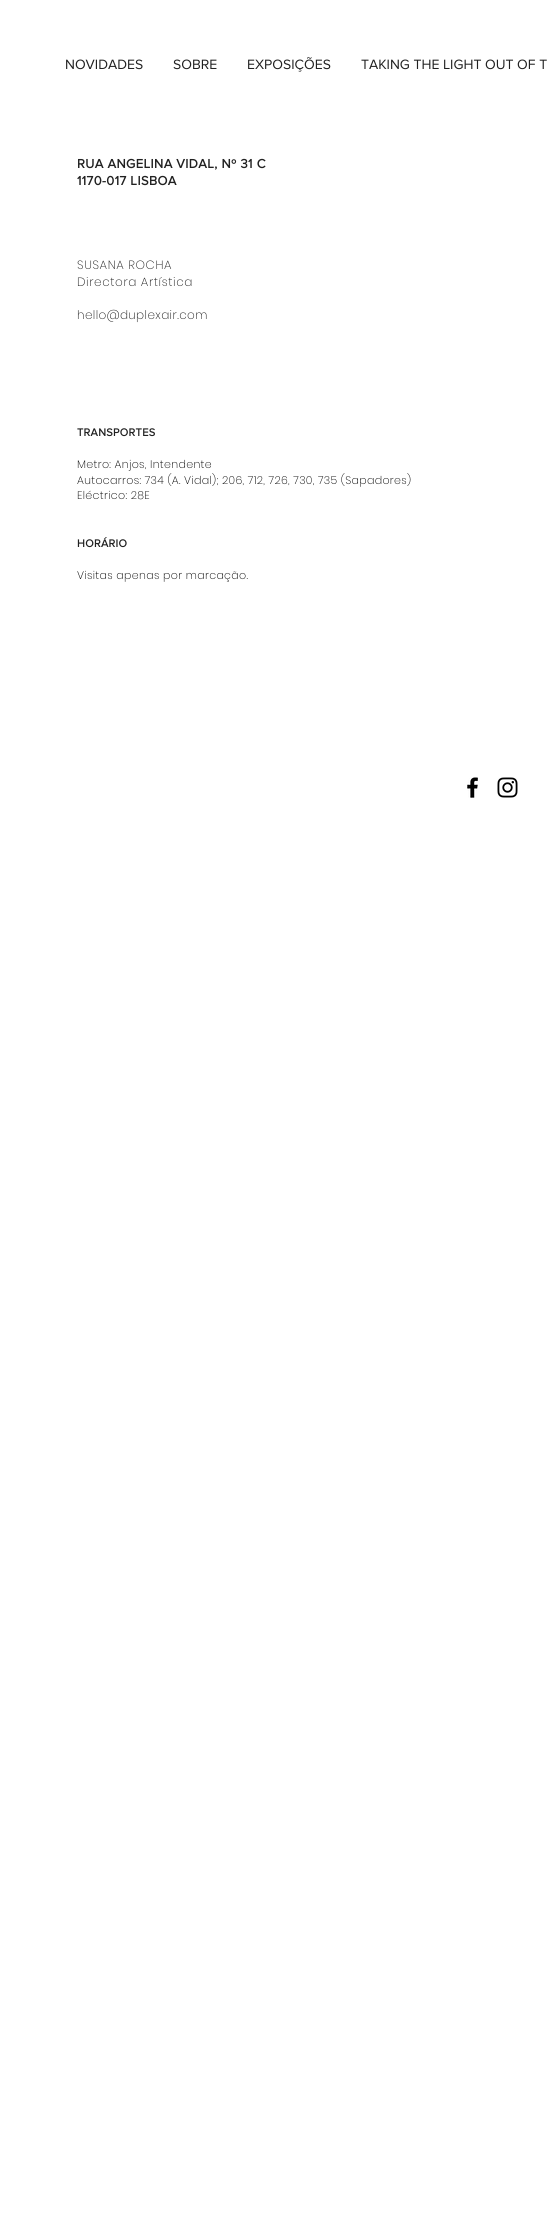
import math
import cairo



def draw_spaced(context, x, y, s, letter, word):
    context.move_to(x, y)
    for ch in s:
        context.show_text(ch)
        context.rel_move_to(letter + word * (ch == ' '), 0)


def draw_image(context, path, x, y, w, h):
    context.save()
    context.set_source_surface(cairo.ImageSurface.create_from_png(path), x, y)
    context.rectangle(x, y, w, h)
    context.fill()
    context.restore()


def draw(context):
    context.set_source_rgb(1, 1, 1)
    context.paint()
    draw_image(context, "images/1.png", 467, 777, 11, 21)
    draw_image(context, "images/2.png", 497, 777, 21, 21)
    context.select_font_face("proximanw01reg")
    context.set_font_size(14)
    context.set_source_rgb(33 / 255, 33 / 255, 33 / 255)
    context.move_to(65, 69)
    context.show_text("NOVIDADES")
    context.move_to(173, 69)
    context.show_text("SOBRE")
    context.move_to(247, 69)
    context.show_text("EXPOSIÇÕES")
    context.move_to(361, 69)
    context.show_text("TAKING THE LIGHT OUT OF T")
    context.select_font_face("proximanw01reg", cairo.FontSlant.NORMAL, cairo.FontWeight.BOLD)
    context.set_font_size(13)
    draw_spaced(context, 77, 168, "RUA ANGELINA VIDAL, Nº 31 C", 0.4, 0)
    draw_spaced(context, 77, 185, "1170-017 LISBOA", 0.4, 0)
    context.select_font_face("Poppins ExtraLight")
    context.set_font_size(12)
    draw_spaced(context, 77, 269, "SUSANA ROCHA", 0.6, 0)
    draw_spaced(context, 77, 286, "Directora Artística", 0.6, 0)
    draw_spaced(context, 77, 319, "hello@duplexair.com", 0.4, 0)
    context.select_font_face("proximanw01reg", cairo.FontSlant.NORMAL, cairo.FontWeight.BOLD)
    context.set_font_size(11)
    draw_spaced(context, 77, 436, "TRANSPORTES", 0.33, 0)
    context.select_font_face("Poppins ExtraLight")
    context.set_source_rgb(0, 0, 0)
    draw_spaced(context, 77, 468, "Metro: Anjos, Intendente", 0.33, 0)
    draw_spaced(context, 77, 484, "Autocarros: 734 (A. Vidal); 206, 712, 726, 730, 735 (Sapadores)", 0.33, 0)
    draw_spaced(context, 77, 499, "Eléctrico: 28E", 0.33, 0)
    context.select_font_face("proximanw01reg", cairo.FontSlant.NORMAL, cairo.FontWeight.BOLD)
    context.set_source_rgb(33 / 255, 33 / 255, 33 / 255)
    draw_spaced(context, 77, 547, "HORÁRIO", 0.33, 0)
    context.select_font_face("Poppins ExtraLight")
    context.set_source_rgb(0, 0, 0)
    draw_spaced(context, 77, 579, "Visitas apenas por marcação.", 0.33, 0)


surface = cairo.ImageSurface(cairo.Format.RGB24, 552, 2235)
context = cairo.Context(surface)
options = cairo.FontOptions()
options.set_hint_metrics(cairo.HintMetrics.OFF)
options.set_hint_style(cairo.HintStyle.NONE)
context.set_font_options(options)
context.set_miter_limit(4)
draw(context)
surface.write_to_png("out.png")
